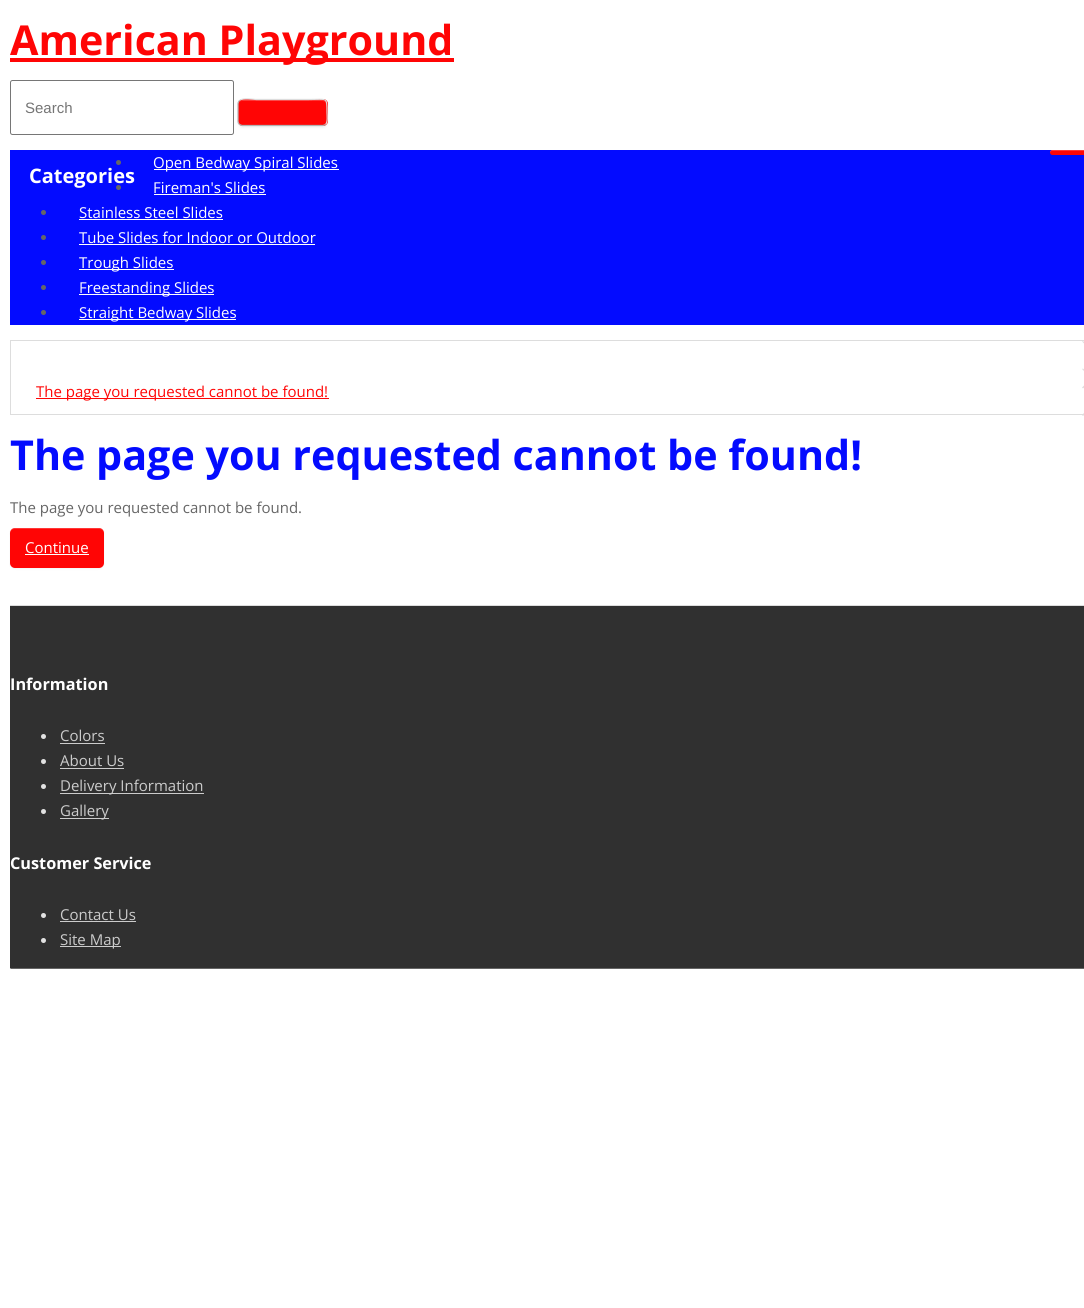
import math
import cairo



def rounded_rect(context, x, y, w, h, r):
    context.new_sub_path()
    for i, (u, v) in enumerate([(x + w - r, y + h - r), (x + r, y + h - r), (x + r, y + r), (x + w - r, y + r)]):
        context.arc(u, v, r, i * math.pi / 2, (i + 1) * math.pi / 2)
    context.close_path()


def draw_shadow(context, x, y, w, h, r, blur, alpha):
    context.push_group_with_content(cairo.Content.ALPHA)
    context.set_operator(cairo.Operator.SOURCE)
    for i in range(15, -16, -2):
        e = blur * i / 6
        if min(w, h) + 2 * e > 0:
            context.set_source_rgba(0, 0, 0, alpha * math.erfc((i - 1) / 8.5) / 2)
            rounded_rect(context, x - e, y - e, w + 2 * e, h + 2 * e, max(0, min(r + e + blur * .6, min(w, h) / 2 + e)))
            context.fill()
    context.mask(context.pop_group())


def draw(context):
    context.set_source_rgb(1, 1, 1)
    context.paint()
    context.set_source_rgb(1, 5 / 255, 5 / 255)
    context.rectangle(10, 58, 444, 4)
    context.fill()
    rounded_rect(context, 10.5, 80.5, 223, 54, 2)
    context.set_source_rgb(118 / 255, 118 / 255, 118 / 255)
    context.set_line_width(1)
    context.stroke()
    context.set_source_rgb(0, 0, 0)
    draw_shadow(context, 238, 100, 90, 28, 5, 1, 0.05)
    context.set_source_rgb(1, 5 / 255, 5 / 255)
    rounded_rect(context, 238, 99, 90, 27, 5)
    context.fill()
    context.set_source_rgb(1, 55 / 255, 55 / 255)
    context.new_path()
    context.move_to(242, 101)
    context.line_to(322, 101)
    context.curve_to(325, 101, 326, 103, 326, 105)
    context.curve_to(326, 97, 314, 100, 309, 100)
    context.line_to(256, 100)
    context.curve_to(251, 100, 239, 97, 239, 105)
    context.curve_to(239, 103, 240, 101, 242, 101)
    context.close_path()
    context.fill()
    context.new_path()
    context.move_to(239.5, 100.5)
    context.curve_to(242.5, 97.5, 254.5, 99.5, 256, 99.5)
    context.line_to(309, 99.5)
    context.curve_to(327, 99.5, 327, 96.5, 327, 112.5)
    context.curve_to(327, 115.5, 328, 122, 325.5, 124.5)
    context.set_source_rgb(221 / 255, 221 / 255, 221 / 255)
    context.set_line_width(1.2)
    context.stroke()
    context.new_path()
    context.move_to(325.5, 124.5)
    context.line_to(323, 125.5)
    context.line_to(242, 125.5)
    context.line_to(239.5, 124.5)
    context.set_source_rgb(179 / 255, 179 / 255, 179 / 255)
    context.stroke()
    context.new_path()
    context.move_to(239.5, 124.5)
    context.curve_to(238.5, 123.5, 238, 122.5, 238, 121)
    context.line_to(238, 104)
    context.curve_to(238, 102.5, 238.5, 101.5, 239.5, 100.5)
    context.set_source_rgb(183 / 255, 183 / 255, 183 / 255)
    context.stroke()
    context.set_source_rgb(3 / 255, 11 / 255, 1)
    context.rectangle(10, 150, 1074, 175)
    context.fill()
    context.set_source_rgb(102 / 255, 102 / 255, 102 / 255)
    context.arc(118.5, 162.5, 2.5, 0, 2 * math.pi)
    context.fill()
    context.set_source_rgb(1, 1, 1)
    context.rectangle(154, 169, 185, 1)
    context.fill()
    context.rectangle(154, 194, 112, 1)
    context.fill()
    context.set_source_rgb(102 / 255, 102 / 255, 102 / 255)
    context.arc(43.5, 212.5, 2.5, 0, 2 * math.pi)
    context.fill()
    context.set_source_rgb(1, 1, 1)
    context.rectangle(79, 219, 144, 1)
    context.fill()
    context.set_source_rgb(102 / 255, 102 / 255, 102 / 255)
    context.arc(43.5, 237.5, 2.5, 0, 2 * math.pi)
    context.fill()
    context.set_source_rgb(1, 1, 1)
    context.rectangle(79, 244, 236, 1)
    context.fill()
    context.set_source_rgb(102 / 255, 102 / 255, 102 / 255)
    context.arc(43.5, 262.5, 2.5, 0, 2 * math.pi)
    context.fill()
    context.set_source_rgb(1, 1, 1)
    context.rectangle(79, 269, 95, 1)
    context.fill()
    context.set_source_rgb(102 / 255, 102 / 255, 102 / 255)
    context.arc(43.5, 287.5, 2.5, 0, 2 * math.pi)
    context.fill()
    context.set_source_rgb(1, 1, 1)
    context.rectangle(79, 294, 135, 1)
    context.fill()
    context.set_source_rgb(102 / 255, 102 / 255, 102 / 255)
    context.arc(43.5, 312.5, 2.5, 0, 2 * math.pi)
    context.fill()
    context.set_source_rgb(1, 1, 1)
    context.rectangle(79, 319, 157, 1)
    context.fill()
    context.set_source_rgb(0, 0, 0)
    draw_shadow(context, 1050, 151, 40, 5, 2.5, 1, 0.05)
    context.set_source_rgb(1, 5 / 255, 5 / 255)
    rounded_rect(context, 1050, 150, 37, 5, 2.5)
    context.fill()
    context.set_source_rgba(1, 1, 1, 0.2)
    context.new_path()
    context.move_to(1052, 151)
    context.line_to(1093, 151)
    context.line_to(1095, 152)
    context.curve_to(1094, 148, 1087, 150, 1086, 150)
    context.line_to(1059, 150)
    context.curve_to(1058, 150, 1049, 148, 1050, 153)
    context.curve_to(1050, 152, 1051, 151, 1052, 151)
    context.close_path()
    context.fill()
    context.rectangle(10.5, 340.5, 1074, 74)
    context.set_source_rgb(221 / 255, 221 / 255, 221 / 255)
    context.set_line_width(1)
    context.stroke()
    context.new_path()
    context.move_to(1082, 341.5)
    context.line_to(1083, 341)
    context.line_to(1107, 364.5)
    context.line_to(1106, 365.5)
    context.close_path()
    context.move_to(1082, 387.5)
    context.line_to(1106, 364)
    context.line_to(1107, 364.5)
    context.line_to(1083, 388.5)
    context.close_path()
    context.fill()
    context.set_source_rgb(1, 5 / 255, 5 / 255)
    context.rectangle(36, 398, 293, 1)
    context.fill()
    context.set_source_rgb(221 / 255, 221 / 255, 221 / 255)
    context.new_path()
    context.move_to(1082, 369)
    context.line_to(1083, 368.5)
    context.line_to(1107, 392)
    context.line_to(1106, 393)
    context.close_path()
    context.move_to(1082, 415)
    context.line_to(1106, 391.5)
    context.line_to(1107, 392)
    context.line_to(1083, 416)
    context.close_path()
    context.fill()
    context.set_source_rgb(0, 0, 0)
    draw_shadow(context, 10, 529, 94, 40, 5, 1, 0.05)
    context.set_source_rgb(1, 5 / 255, 5 / 255)
    rounded_rect(context, 10, 528, 94, 40, 5)
    context.fill()
    context.set_source_rgba(1, 1, 1, 0.2)
    context.new_path()
    context.move_to(15, 529)
    context.line_to(99, 529)
    context.curve_to(102, 529, 104, 531, 104, 534)
    context.curve_to(104, 525, 91, 528, 85, 528)
    context.line_to(29, 528)
    context.curve_to(23, 528, 10, 525, 10, 534)
    context.curve_to(10, 531, 12, 529, 15, 529)
    context.close_path()
    context.fill()
    context.set_source_rgb(1, 1, 1)
    context.rectangle(25, 554, 64, 1)
    context.fill()
    context.set_source_rgb(48 / 255, 48 / 255, 48 / 255)
    context.rectangle(10, 606, 1074, 362)
    context.fill()
    context.set_source_rgb(221 / 255, 221 / 255, 221 / 255)
    context.rectangle(10, 605, 1074, 1)
    context.fill()
    context.set_source_rgb(226 / 255, 226 / 255, 226 / 255)
    context.arc(43.5, 736.5, 2.5, 0, 2 * math.pi)
    context.fill()
    context.set_source_rgb(204 / 255, 204 / 255, 204 / 255)
    context.rectangle(60, 743, 45, 1)
    context.fill()
    context.set_source_rgb(226 / 255, 226 / 255, 226 / 255)
    context.arc(43.5, 761.5, 2.5, 0, 2 * math.pi)
    context.fill()
    context.set_source_rgb(204 / 255, 204 / 255, 204 / 255)
    context.rectangle(60, 768, 64, 1)
    context.fill()
    context.set_source_rgb(226 / 255, 226 / 255, 226 / 255)
    context.arc(43.5, 786.5, 2.5, 0, 2 * math.pi)
    context.fill()
    context.set_source_rgb(204 / 255, 204 / 255, 204 / 255)
    context.rectangle(60, 793, 144, 1)
    context.fill()
    context.set_source_rgb(226 / 255, 226 / 255, 226 / 255)
    context.arc(43.5, 811.5, 2.5, 0, 2 * math.pi)
    context.fill()
    context.set_source_rgb(204 / 255, 204 / 255, 204 / 255)
    context.rectangle(60, 818, 49, 1)
    context.fill()
    context.set_source_rgb(226 / 255, 226 / 255, 226 / 255)
    context.arc(43.5, 915.5, 2.5, 0, 2 * math.pi)
    context.fill()
    context.set_source_rgb(204 / 255, 204 / 255, 204 / 255)
    context.rectangle(60, 921, 76, 1)
    context.fill()
    context.set_source_rgb(226 / 255, 226 / 255, 226 / 255)
    context.arc(43.5, 940.5, 2.5, 0, 2 * math.pi)
    context.fill()
    context.set_source_rgb(204 / 255, 204 / 255, 204 / 255)
    context.rectangle(60, 946, 61, 1)
    context.fill()
    context.set_source_rgb(102 / 255, 102 / 255, 102 / 255)
    context.rectangle(10, 968, 1074, 1)
    context.fill()
    context.set_source_rgb(159 / 255, 159 / 255, 159 / 255)
    context.rectangle(10, 968, 1, 1)
    context.fill()
    context.select_font_face("Open Sans", cairo.FontSlant.NORMAL, cairo.FontWeight.BOLD)
    context.set_font_size(41.25)
    context.set_source_rgb(1, 5 / 255, 5 / 255)
    context.move_to(10, 55)
    context.show_text("American Playground")
    context.select_font_face("Liberation Sans")
    context.set_font_size(15)
    context.set_source_rgb(117 / 255, 117 / 255, 117 / 255)
    context.move_to(25, 113)
    context.show_text("Search")
    context.select_font_face("Open Sans")
    context.set_source_rgb(1, 1, 1)
    context.move_to(153, 168)
    context.show_text("Open Bedway Spiral Slides")
    context.move_to(153, 193)
    context.show_text("Fireman's Slides")
    context.move_to(79, 218)
    context.show_text("Stainless Steel Slides")
    context.move_to(79, 243)
    context.show_text("Tube Slides for Indoor or Outdoor")
    context.move_to(79, 268)
    context.show_text("Trough Slides")
    context.move_to(79, 293)
    context.show_text("Freestanding Slides")
    context.move_to(79, 318)
    context.show_text("Straight Bedway Slides")
    context.select_font_face("Open Sans", cairo.FontSlant.NORMAL, cairo.FontWeight.BOLD)
    context.set_font_size(20)
    context.move_to(29, 183)
    context.show_text("Categories")
    context.set_source_rgb(102 / 255, 102 / 255, 102 / 255)
    context.new_path()
    context.arc(118.5, 187.5, 2.5, 0, 2 * math.pi)
    context.fill()
    context.select_font_face("Open Sans")
    context.set_font_size(15)
    context.set_source_rgb(1, 5 / 255, 5 / 255)
    context.move_to(36, 397)
    context.show_text("The page you requested cannot be found!")
    context.select_font_face("Open Sans", cairo.FontSlant.NORMAL, cairo.FontWeight.BOLD)
    context.set_font_size(41.25)
    context.set_source_rgb(3 / 255, 11 / 255, 1)
    context.move_to(10, 470)
    context.show_text("The page you requested cannot be found!")
    context.select_font_face("Open Sans")
    context.set_font_size(15)
    context.set_source_rgb(102 / 255, 102 / 255, 102 / 255)
    context.move_to(10, 513)
    context.show_text("The page you requested cannot be found.")
    context.set_source_rgb(1, 1, 1)
    context.move_to(25, 553)
    context.show_text("Continue")
    context.select_font_face("Open Sans", cairo.FontSlant.NORMAL, cairo.FontWeight.BOLD)
    context.set_font_size(16.25)
    context.move_to(10, 690)
    context.show_text("Information")
    context.select_font_face("Open Sans")
    context.set_font_size(15)
    context.set_source_rgb(204 / 255, 204 / 255, 204 / 255)
    context.move_to(60, 741)
    context.show_text("Colors")
    context.move_to(60, 766)
    context.show_text("About Us")
    context.move_to(60, 791)
    context.show_text("Delivery Information")
    context.move_to(60, 816)
    context.show_text("Gallery")
    context.select_font_face("Open Sans", cairo.FontSlant.NORMAL, cairo.FontWeight.BOLD)
    context.set_font_size(16.25)
    context.set_source_rgb(1, 1, 1)
    context.move_to(10, 869)
    context.show_text("Customer Service")
    context.select_font_face("Open Sans")
    context.set_font_size(15)
    context.set_source_rgb(204 / 255, 204 / 255, 204 / 255)
    context.move_to(60, 920)
    context.show_text("Contact Us")
    context.move_to(60, 945)
    context.show_text("Site Map")


surface = cairo.ImageSurface(cairo.Format.RGB24, 1084, 1308)
context = cairo.Context(surface)
options = cairo.FontOptions()
options.set_hint_metrics(cairo.HintMetrics.OFF)
options.set_hint_style(cairo.HintStyle.NONE)
context.set_font_options(options)
context.set_miter_limit(4)
draw(context)
surface.write_to_png("out.png")
